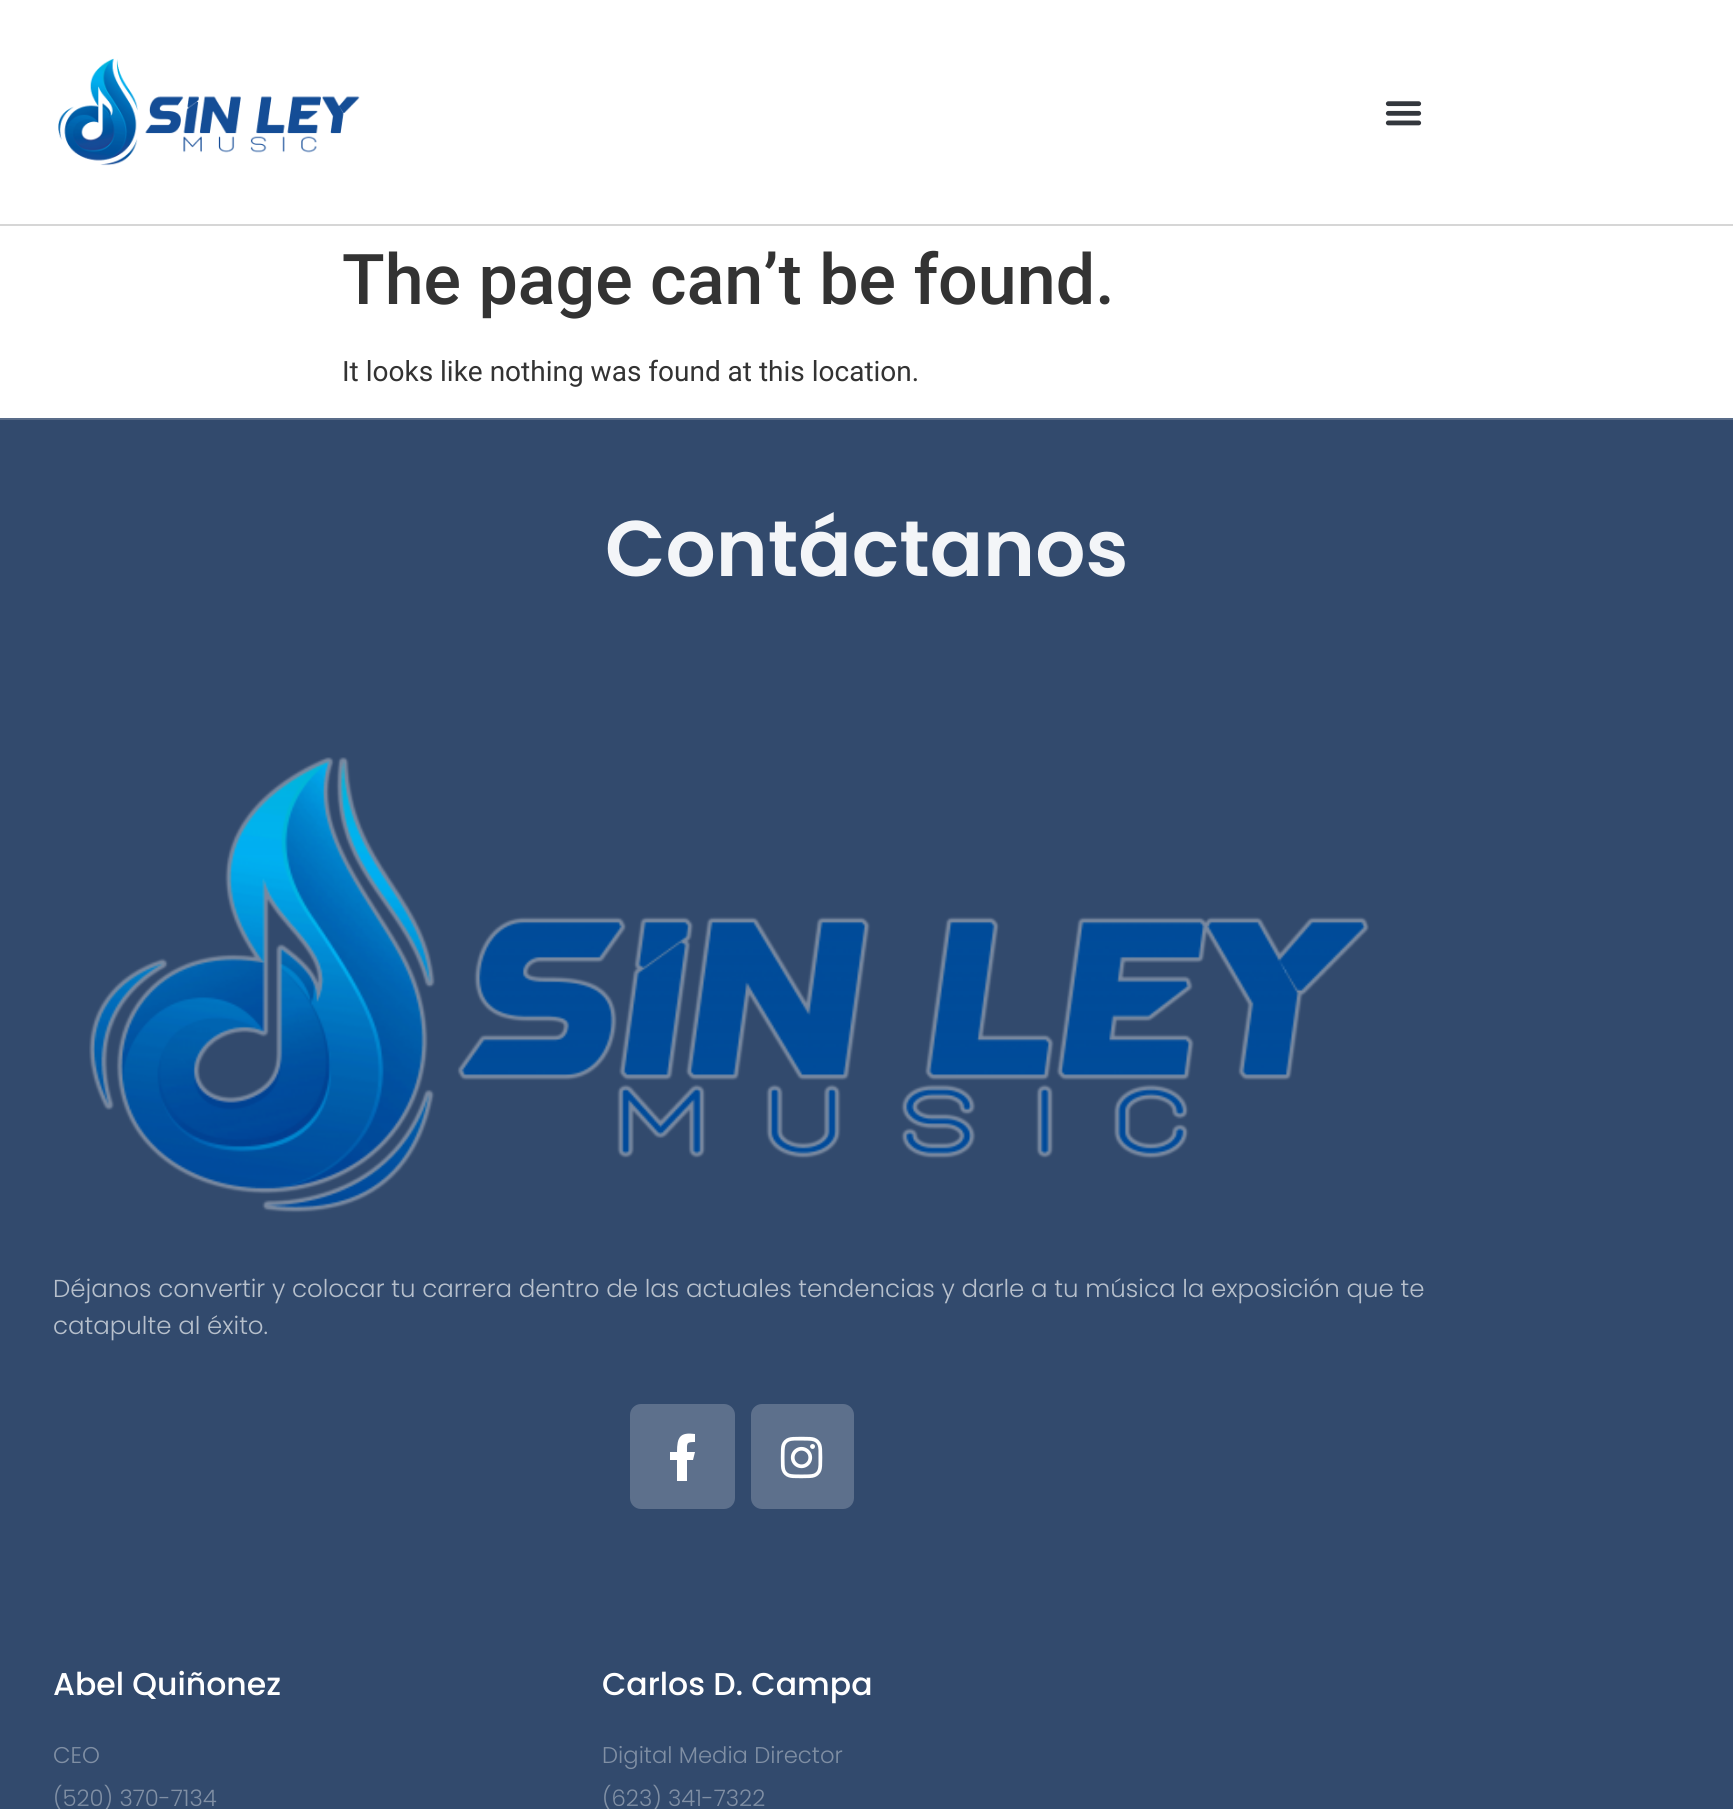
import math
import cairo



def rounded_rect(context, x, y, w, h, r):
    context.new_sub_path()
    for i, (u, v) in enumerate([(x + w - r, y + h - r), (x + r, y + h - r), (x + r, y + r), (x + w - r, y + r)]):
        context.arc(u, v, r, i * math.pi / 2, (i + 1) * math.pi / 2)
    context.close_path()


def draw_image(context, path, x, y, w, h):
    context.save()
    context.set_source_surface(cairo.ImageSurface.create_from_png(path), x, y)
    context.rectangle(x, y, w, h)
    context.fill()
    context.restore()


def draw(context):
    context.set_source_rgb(1, 1, 1)
    context.paint()
    context.set_source_rgb(214 / 255, 214 / 255, 214 / 255)
    context.rectangle(0, 224, 1733, 2)
    context.fill()
    draw_image(context, "images/1.png", 58, 58, 302, 108)
    draw_image(context, "images/2.png", 1385, 101, 37, 25)
    context.set_source_rgb(50 / 255, 74 / 255, 109 / 255)
    context.rectangle(0, 420, 1733, 1389)
    context.fill()
    context.set_source_rgb(89 / 255, 108 / 255, 137 / 255)
    context.rectangle(0, 418, 1733, 2)
    context.fill()
    draw_image(context, "images/3.png", 89, 757, 1280, 456)
    context.set_source_rgb(93 / 255, 112 / 255, 140 / 255)
    rounded_rect(context, 630, 1404, 105, 105, 11)
    context.fill()
    context.set_source_rgb(1, 1, 1)
    context.new_path()
    context.move_to(693, 1460)
    context.line_to(687, 1460)
    context.line_to(687, 1481)
    context.line_to(677, 1481)
    context.line_to(677, 1460)
    context.line_to(670, 1460)
    context.line_to(670, 1452)
    context.line_to(677, 1452)
    context.curve_to(677, 1437, 680, 1432, 695, 1434)
    context.line_to(695, 1442)
    context.curve_to(686, 1442, 687, 1443, 687, 1452)
    context.line_to(695, 1452)
    context.close_path()
    context.fill()
    context.set_source_rgb(93 / 255, 112 / 255, 140 / 255)
    rounded_rect(context, 751, 1404, 103, 105, 11)
    context.fill()
    draw_image(context, "images/4.png", 780, 1436, 43, 43)
    context.select_font_face("Roboto Medium")
    context.set_font_size(70)
    context.set_source_rgb(51 / 255, 51 / 255, 51 / 255)
    context.move_to(342, 304)
    context.show_text("The page can’t be found.")
    context.select_font_face("Roboto")
    context.set_font_size(28)
    context.move_to(342, 381)
    context.show_text("It looks like nothing was found at this location.")
    context.select_font_face("Poppins SemiBold")
    context.set_font_size(78.75)
    context.set_source_rgb(243 / 255, 245 / 255, 248 / 255)
    context.move_to(605, 576)
    context.show_text("Contáctanos")
    context.select_font_face("Poppins Light")
    context.set_font_size(24.5)
    context.set_source_rgb(183 / 255, 192 / 255, 204 / 255)
    context.move_to(53, 1297)
    context.show_text("Déjanos convertir y colocar tu carrera dentro de las actuales tendencias y darle a tu música la exposición que te")
    context.move_to(53, 1334)
    context.show_text("catapulte al éxito.")
    context.select_font_face("Poppins Medium")
    context.set_font_size(31.5)
    context.set_source_rgb(1, 1, 1)
    context.move_to(53, 1695)
    context.show_text("Abel Quiñonez")
    context.select_font_face("Poppins Light")
    context.set_font_size(22.75)
    context.set_source_rgb(128 / 255, 143 / 255, 164 / 255)
    context.move_to(53, 1763)
    context.show_text("CEO")
    context.move_to(53, 1806)
    context.show_text("(520) 370-7134")
    context.select_font_face("Poppins Medium")
    context.set_font_size(31.5)
    context.set_source_rgb(1, 1, 1)
    context.move_to(602, 1695)
    context.show_text("Carlos D. Campa")
    context.select_font_face("Poppins Light")
    context.set_font_size(22.75)
    context.set_source_rgb(128 / 255, 143 / 255, 164 / 255)
    context.move_to(602, 1763)
    context.show_text("Digital Media Director")
    context.move_to(602, 1806)
    context.show_text("(623) 341-7322")


surface = cairo.ImageSurface(cairo.Format.RGB24, 1733, 1809)
context = cairo.Context(surface)
options = cairo.FontOptions()
options.set_hint_metrics(cairo.HintMetrics.OFF)
options.set_hint_style(cairo.HintStyle.NONE)
context.set_font_options(options)
context.set_miter_limit(4)
draw(context)
surface.write_to_png("out.png")
